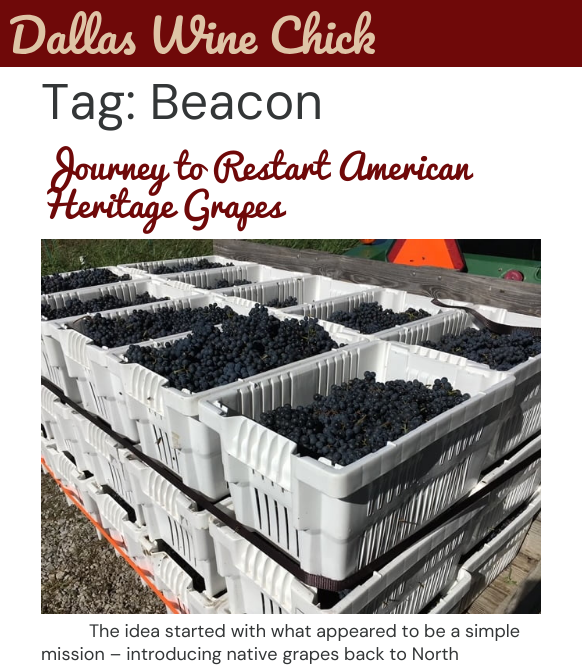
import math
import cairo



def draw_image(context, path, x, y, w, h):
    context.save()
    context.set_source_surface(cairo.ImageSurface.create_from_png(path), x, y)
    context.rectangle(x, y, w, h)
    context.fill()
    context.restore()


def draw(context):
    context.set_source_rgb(1, 1, 1)
    context.paint()
    context.set_source_rgb(111 / 255, 9 / 255, 9 / 255)
    context.rectangle(0, 0, 582, 67)
    context.fill()
    draw_image(context, "images/1.png", 10, 11, 365, 44)
    draw_image(context, "images/2.png", 41, 239, 500, 375)
    context.select_font_face("DM Sans")
    context.set_font_size(50)
    context.set_source_rgb(51 / 255, 54 / 255, 55 / 255)
    context.move_to(41, 119)
    context.show_text("Tag: Beacon")
    context.select_font_face("Pacifico")
    context.set_font_size(35)
    context.set_source_rgb(111 / 255, 9 / 255, 9 / 255)
    context.move_to(41, 180)
    context.show_text("Journey to Restart American")
    context.move_to(41, 218)
    context.show_text("Heritage Grapes")
    context.select_font_face("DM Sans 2")
    context.set_font_size(18)
    context.set_source_rgb(51 / 255, 54 / 255, 55 / 255)
    context.move_to(89, 637)
    context.show_text("The idea started with what appeared to be a simple")
    context.move_to(41, 660)
    context.show_text("mission – introducing native grapes back to North")


surface = cairo.ImageSurface(cairo.Format.RGB24, 582, 669)
context = cairo.Context(surface)
options = cairo.FontOptions()
options.set_hint_metrics(cairo.HintMetrics.OFF)
options.set_hint_style(cairo.HintStyle.NONE)
context.set_font_options(options)
context.set_miter_limit(4)
draw(context)
surface.write_to_png("out.png")
